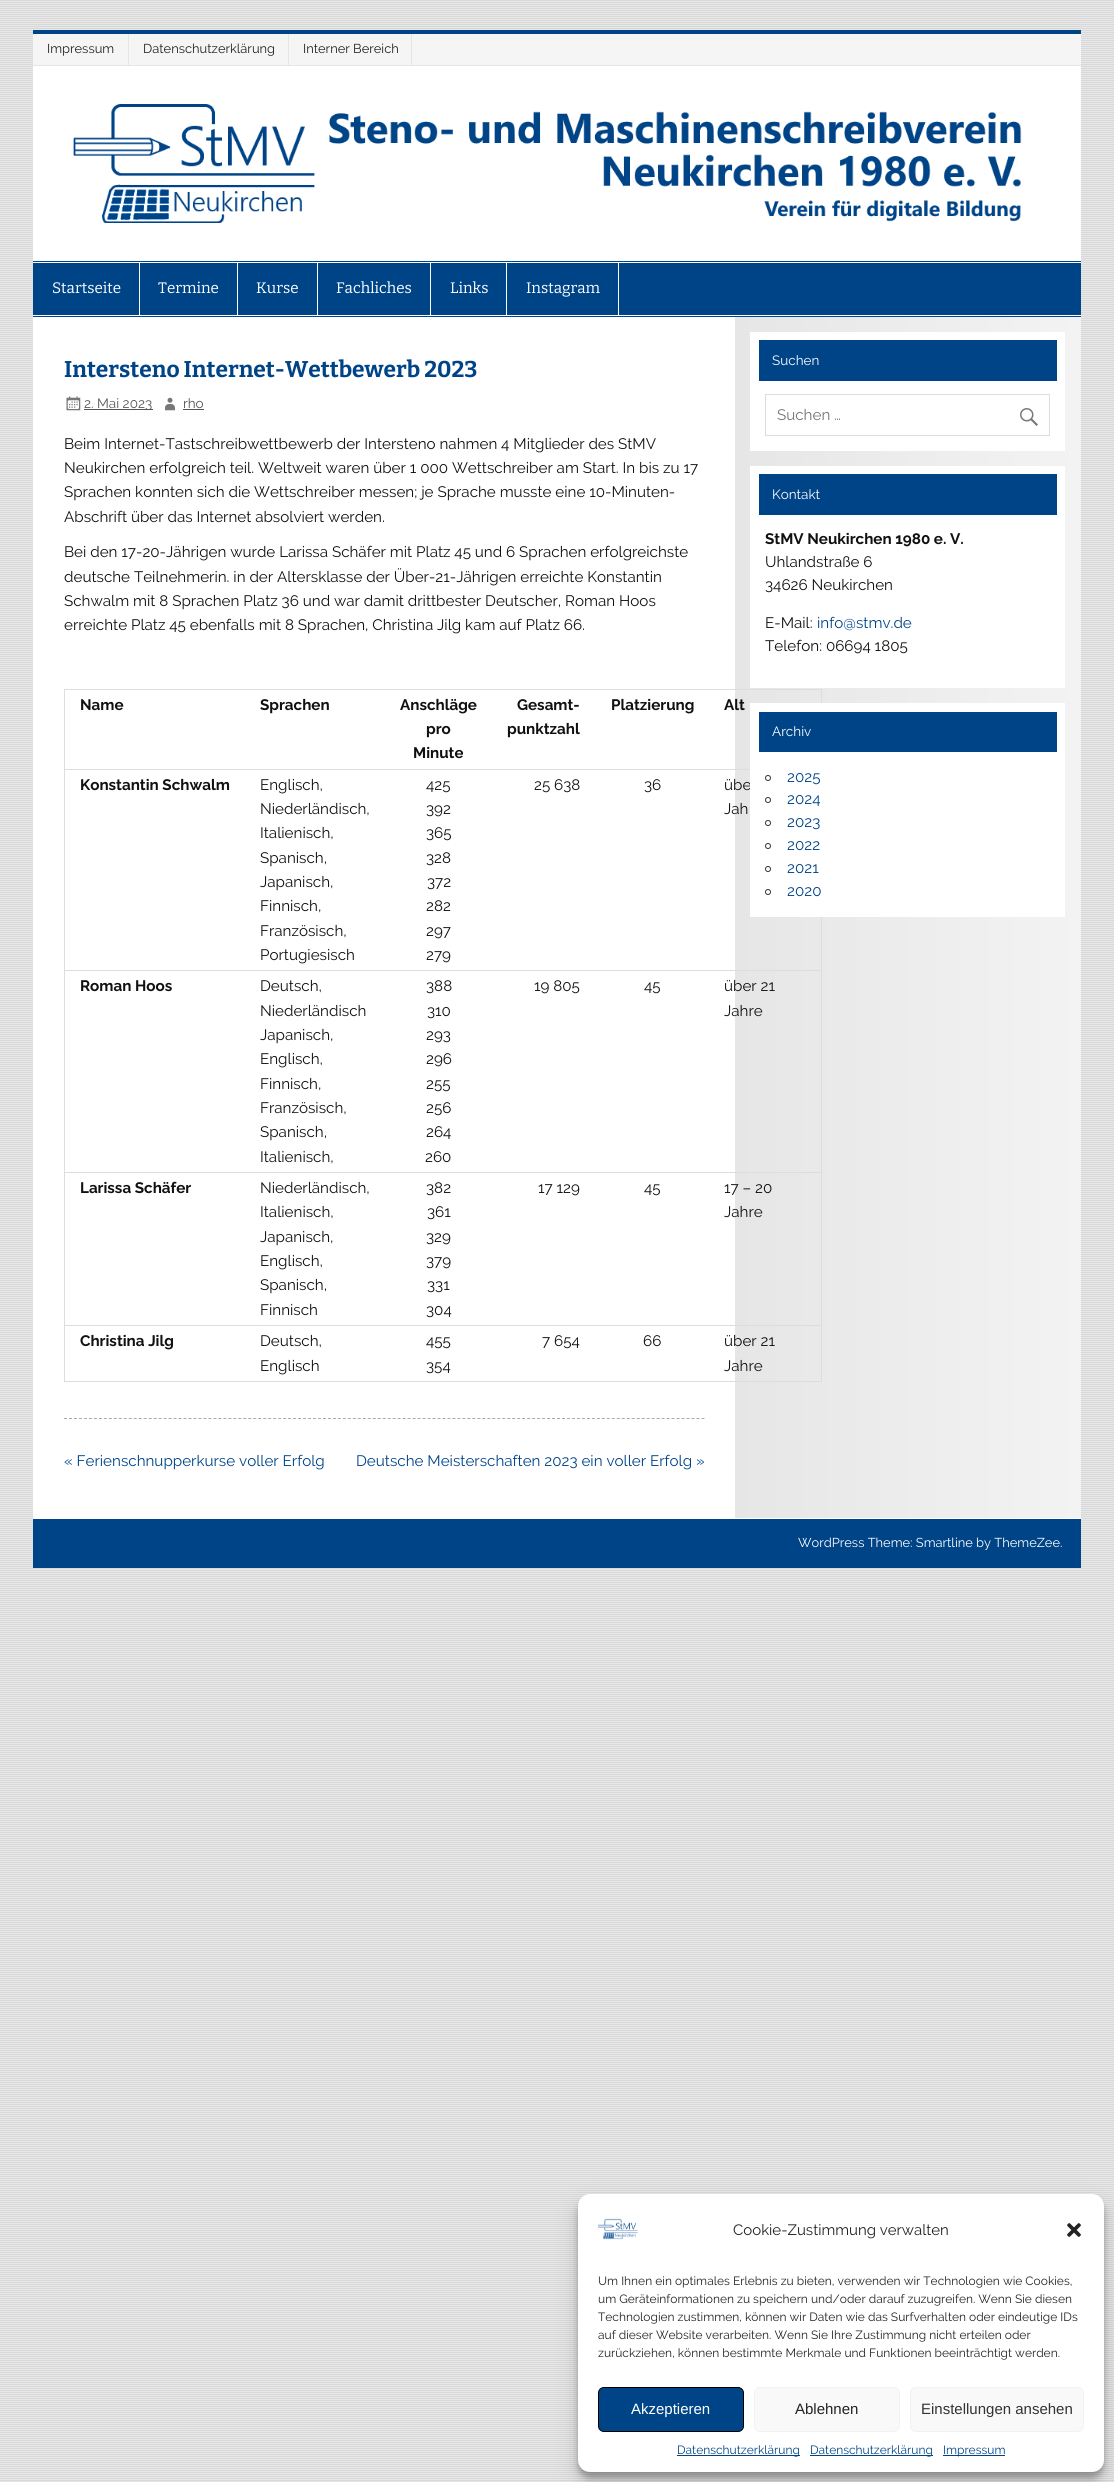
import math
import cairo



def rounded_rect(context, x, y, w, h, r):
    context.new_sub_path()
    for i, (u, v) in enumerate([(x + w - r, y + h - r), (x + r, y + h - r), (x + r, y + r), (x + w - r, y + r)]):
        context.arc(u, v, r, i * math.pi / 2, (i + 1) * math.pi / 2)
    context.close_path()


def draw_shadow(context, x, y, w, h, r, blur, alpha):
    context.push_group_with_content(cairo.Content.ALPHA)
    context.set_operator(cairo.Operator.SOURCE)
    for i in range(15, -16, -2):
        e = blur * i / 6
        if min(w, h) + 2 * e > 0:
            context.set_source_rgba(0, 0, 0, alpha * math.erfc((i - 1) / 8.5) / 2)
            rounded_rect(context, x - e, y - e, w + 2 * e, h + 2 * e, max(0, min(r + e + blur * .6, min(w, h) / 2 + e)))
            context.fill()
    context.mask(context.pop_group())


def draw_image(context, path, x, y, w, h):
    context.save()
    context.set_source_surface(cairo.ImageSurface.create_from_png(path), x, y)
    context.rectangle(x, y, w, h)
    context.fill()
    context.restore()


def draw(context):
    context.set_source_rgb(229 / 255, 229 / 255, 229 / 255)
    context.paint()
    draw_image(context, "images/1.png", 0, 0, 1114, 2481)
    context.set_source_rgb(1, 1, 1)
    context.rectangle(33, 66, 1048, 1453)
    context.fill()
    context.set_source_rgb(0, 68 / 255, 136 / 255)
    context.rectangle(33, 30, 1048, 4)
    context.fill()
    context.set_source_rgb(245 / 255, 245 / 255, 245 / 255)
    context.rectangle(33, 34, 1048, 31)
    context.fill()
    context.set_source_rgb(229 / 255, 229 / 255, 229 / 255)
    context.rectangle(33, 65, 1048, 1)
    context.fill()
    context.rectangle(128, 34, 1, 31)
    context.fill()
    context.rectangle(288, 34, 1, 31)
    context.fill()
    context.rectangle(411, 34, 1, 31)
    context.fill()
    draw_image(context, "images/2.png", 73, 104, 949, 119)
    context.set_source_rgb(0, 68 / 255, 136 / 255)
    context.rectangle(33, 261, 1048, 1)
    context.fill()
    context.rectangle(33, 316, 1048, 1)
    context.fill()
    context.rectangle(33, 263, 1048, 52)
    context.fill()
    context.set_source_rgb(1, 1, 1)
    context.rectangle(139, 263, 1, 52)
    context.fill()
    context.rectangle(237, 263, 1, 52)
    context.fill()
    context.rectangle(317, 263, 1, 52)
    context.fill()
    context.rectangle(430, 263, 1, 52)
    context.fill()
    context.rectangle(506, 263, 1, 52)
    context.fill()
    context.rectangle(618, 263, 1, 52)
    context.fill()
    context.new_path()
    context.move_to(64, 1418.5)
    context.line_to(705, 1418.5)
    context.set_source_rgb(170 / 255, 170 / 255, 170 / 255)
    context.set_line_width(1)
    context.set_dash([3, 1.98])
    context.stroke()
    draw_image(context, "images/3.png", 66, 396, 15, 15)
    context.set_source_rgb(85 / 255, 85 / 255, 85 / 255)
    context.rectangle(84, 409, 69, 1)
    context.fill()
    draw_image(context, "images/4.png", 165, 397, 10, 14)
    context.rectangle(183, 409, 21, 1)
    context.fill()
    gradient = cairo.LinearGradient(735, 918, 1081, 918)
    gradient.add_color_stop_rgba(0, 230 / 255, 230 / 255, 230 / 255, 1)
    gradient.add_color_stop_rgba(1, 243 / 255, 243 / 255, 243 / 255, 1)
    context.set_source(gradient)
    context.rectangle(735, 317, 346, 1201)
    context.fill()
    context.set_source_rgb(221 / 255, 221 / 255, 221 / 255)
    context.rectangle(64, 689, 758, 1)
    context.fill()
    context.rectangle(821, 689, 1, 693)
    context.fill()
    context.rectangle(64, 1381, 758, 1)
    context.fill()
    context.rectangle(64, 689, 1, 693)
    context.fill()
    context.rectangle(64, 769, 686, 1)
    context.fill()
    context.rectangle(64, 970, 758, 1)
    context.fill()
    context.rectangle(64, 1172, 758, 1)
    context.fill()
    context.rectangle(64, 1325, 758, 1)
    context.fill()
    context.set_source_rgb(1, 1, 1)
    context.rectangle(750, 332, 315, 119)
    context.fill()
    context.set_source_rgb(0, 68 / 255, 136 / 255)
    context.rectangle(759, 340, 298, 41)
    context.fill()
    context.rectangle(765.5, 394.5, 284, 41)
    context.set_source_rgb(221 / 255, 221 / 255, 221 / 255)
    context.set_dash([])
    context.stroke()
    draw_image(context, "images/5.png", 1020, 408, 18, 18)
    context.set_source_rgb(1, 1, 1)
    context.rectangle(750, 466, 315, 222)
    context.fill()
    context.set_source_rgb(0, 68 / 255, 136 / 255)
    context.rectangle(759, 474, 298, 41)
    context.fill()
    context.rectangle(33, 1519, 1048, 49)
    context.fill()
    context.set_source_rgb(0, 0, 0)
    draw_shadow(context, 578, 2200, 526, 278, 12, 3, 0.23)
    draw_shadow(context, 578, 2204, 526, 278, 12, 10, 0.19)
    context.set_source_rgb(1, 1, 1)
    rounded_rect(context, 578, 2194, 526, 278, 12)
    context.fill()
    draw_image(context, "images/6.png", 598, 2218, 40, 22)
    draw_image(context, "images/7.png", 1067, 2223, 14, 14)
    context.set_source_rgb(0, 68 / 255, 136 / 255)
    rounded_rect(context, 598.5, 2387.5, 145, 44, 5.5)
    context.fill_preserve()
    context.set_source_rgb(0, 0, 0)
    context.stroke()
    context.set_source_rgb(249 / 255, 249 / 255, 249 / 255)
    rounded_rect(context, 754.5, 2387.5, 145, 44, 5.5)
    context.fill_preserve()
    context.set_source_rgb(242 / 255, 242 / 255, 242 / 255)
    context.stroke()
    context.set_source_rgb(249 / 255, 249 / 255, 249 / 255)
    rounded_rect(context, 910.5, 2387.5, 173, 44, 5.5)
    context.fill_preserve()
    context.set_source_rgb(242 / 255, 242 / 255, 242 / 255)
    context.stroke()
    context.set_source_rgb(0, 68 / 255, 136 / 255)
    context.rectangle(677, 2455, 123, 1)
    context.fill()
    context.rectangle(810, 2455, 123, 1)
    context.fill()
    context.rectangle(943, 2455, 62, 1)
    context.fill()
    context.select_font_face("Raleway")
    context.set_font_size(12.9)
    context.set_source_rgb(34 / 255, 34 / 255, 34 / 255)
    context.move_to(47, 53)
    context.show_text("Impressum")
    context.move_to(143, 53)
    context.show_text("Datenschutzerklärung")
    context.move_to(303, 53)
    context.show_text("Interner Bereich")
    context.select_font_face("Bitter")
    context.set_font_size(15.2)
    context.set_source_rgb(1, 1, 1)
    context.move_to(52, 293)
    context.show_text("Startseite")
    context.move_to(158, 293)
    context.show_text("Termine")
    context.move_to(256, 293)
    context.show_text("Kurse")
    context.move_to(336, 293)
    context.show_text("Fachliches")
    context.move_to(450, 293)
    context.show_text("Links")
    context.move_to(526, 293)
    context.show_text("Instagram")
    context.select_font_face("Bitter", cairo.FontSlant.NORMAL, cairo.FontWeight.BOLD)
    context.set_font_size(22.75)
    context.set_source_rgb(0, 68 / 255, 136 / 255)
    context.move_to(64, 377)
    context.show_text("Intersteno Internet-Wettbewerb 2023")
    context.select_font_face("Raleway")
    context.set_font_size(13.5)
    context.set_source_rgb(85 / 255, 85 / 255, 85 / 255)
    context.move_to(84, 408)
    context.show_text("2. Mai 2023")
    context.move_to(183, 408)
    context.show_text("rho")
    context.set_font_size(15.2)
    context.set_source_rgb(17 / 255, 17 / 255, 17 / 255)
    context.move_to(64, 449)
    context.show_text("Beim Internet-Tastschreibwettbewerb der Intersteno nahmen 4 Mitglieder des StMV")
    context.move_to(64, 473)
    context.show_text("Neukirchen erfolgreich teil. Weltweit waren über 1 000 Wettschreiber am Start. In bis zu 17")
    context.move_to(64, 497)
    context.show_text("Sprachen konnten sich die Wettschreiber messen; je Sprache musste eine 10-Minuten-")
    context.move_to(64, 522)
    context.show_text("Abschrift über das Internet absolviert werden.")
    context.move_to(64, 557)
    context.show_text("Bei den 17-20-Jährigen wurde Larissa Schäfer mit Platz 45 und 6 Sprachen erfolgreichste")
    context.move_to(64, 582)
    context.show_text("deutsche Teilnehmerin. in der Altersklasse der Über-21-Jährigen erreichte Konstantin")
    context.move_to(64, 606)
    context.show_text("Schwalm mit 8 Sprachen Platz 36 und war damit drittbester Deutscher, Roman Hoos")
    context.move_to(64, 630)
    context.show_text("erreichte Platz 45 ebenfalls mit 8 Sprachen, Christina Jilg kam auf Platz 66.")
    context.select_font_face("Raleway", cairo.FontSlant.NORMAL, cairo.FontWeight.BOLD)
    context.move_to(80, 710)
    context.show_text("Name")
    context.move_to(260, 710)
    context.show_text("Sprachen")
    context.move_to(400, 710)
    context.show_text("Anschläge")
    context.move_to(426, 734)
    context.show_text("pro")
    context.move_to(413, 758)
    context.show_text("Minute")
    context.move_to(517, 710)
    context.show_text("Gesamt-")
    context.move_to(507, 734)
    context.show_text("punktzahl")
    context.move_to(611, 710)
    context.show_text("Platzierung")
    context.move_to(724, 710)
    context.show_text("Alt")
    context.move_to(80, 790)
    context.show_text("Konstantin Schwalm")
    context.select_font_face("Raleway")
    context.move_to(260, 790)
    context.show_text("Englisch,")
    context.move_to(260, 814)
    context.show_text("Niederländisch,")
    context.move_to(260, 838)
    context.show_text("Italienisch,")
    context.move_to(260, 863)
    context.show_text("Spanisch,")
    context.move_to(260, 887)
    context.show_text("Japanisch,")
    context.move_to(260, 911)
    context.show_text("Finnisch,")
    context.move_to(260, 936)
    context.show_text("Französisch,")
    context.move_to(260, 960)
    context.show_text("Portugiesisch")
    context.move_to(426, 790)
    context.show_text("425")
    context.move_to(426, 814)
    context.show_text("392")
    context.move_to(426, 838)
    context.show_text("365")
    context.move_to(426, 863)
    context.show_text("328")
    context.move_to(427, 887)
    context.show_text("372")
    context.move_to(426, 911)
    context.show_text("282")
    context.move_to(426, 936)
    context.show_text("297")
    context.move_to(426, 960)
    context.show_text("279")
    context.move_to(534, 790)
    context.show_text("25 638")
    context.move_to(644, 790)
    context.show_text("36")
    context.move_to(724, 790)
    context.show_text("übe")
    context.move_to(724, 814)
    context.show_text("Jah")
    context.select_font_face("Raleway", cairo.FontSlant.NORMAL, cairo.FontWeight.BOLD)
    context.move_to(80, 991)
    context.show_text("Roman Hoos")
    context.select_font_face("Raleway")
    context.move_to(260, 991)
    context.show_text("Deutsch,")
    context.move_to(260, 1016)
    context.show_text("Niederländisch")
    context.move_to(260, 1040)
    context.show_text("Japanisch,")
    context.move_to(260, 1064)
    context.show_text("Englisch,")
    context.move_to(260, 1089)
    context.show_text("Finnisch,")
    context.move_to(260, 1113)
    context.show_text("Französisch,")
    context.move_to(260, 1137)
    context.show_text("Spanisch,")
    context.move_to(260, 1162)
    context.show_text("Italienisch,")
    context.move_to(426, 991)
    context.show_text("388")
    context.move_to(427, 1016)
    context.show_text("310")
    context.move_to(426, 1040)
    context.show_text("293")
    context.move_to(426, 1064)
    context.show_text("296")
    context.move_to(426, 1089)
    context.show_text("255")
    context.move_to(426, 1113)
    context.show_text("256")
    context.move_to(426, 1137)
    context.show_text("264")
    context.move_to(425, 1162)
    context.show_text("260")
    context.move_to(534, 991)
    context.show_text("19 805")
    context.move_to(644, 991)
    context.show_text("45")
    context.move_to(724, 991)
    context.show_text("über 21")
    context.move_to(724, 1016)
    context.show_text("Jahre")
    context.select_font_face("Raleway", cairo.FontSlant.NORMAL, cairo.FontWeight.BOLD)
    context.move_to(80, 1193)
    context.show_text("Larissa Schäfer")
    context.select_font_face("Raleway")
    context.move_to(260, 1193)
    context.show_text("Niederländisch,")
    context.move_to(260, 1217)
    context.show_text("Italienisch,")
    context.move_to(260, 1242)
    context.show_text("Japanisch,")
    context.move_to(260, 1266)
    context.show_text("Englisch,")
    context.move_to(260, 1290)
    context.show_text("Spanisch,")
    context.move_to(260, 1315)
    context.show_text("Finnisch")
    context.move_to(426, 1193)
    context.show_text("382")
    context.move_to(427, 1217)
    context.show_text("361")
    context.move_to(426, 1242)
    context.show_text("329")
    context.move_to(426, 1266)
    context.show_text("379")
    context.move_to(427, 1290)
    context.show_text("331")
    context.move_to(426, 1315)
    context.show_text("304")
    context.move_to(538, 1193)
    context.show_text("17 129")
    context.move_to(644, 1193)
    context.show_text("45")
    context.move_to(724, 1193)
    context.show_text("17 – 20")
    context.move_to(724, 1217)
    context.show_text("Jahre")
    context.select_font_face("Raleway", cairo.FontSlant.NORMAL, cairo.FontWeight.BOLD)
    context.move_to(80, 1346)
    context.show_text("Christina Jilg")
    context.select_font_face("Raleway")
    context.move_to(260, 1346)
    context.show_text("Deutsch,")
    context.move_to(260, 1371)
    context.show_text("Englisch")
    context.move_to(426, 1346)
    context.show_text("455")
    context.move_to(426, 1371)
    context.show_text("354")
    context.move_to(542, 1346)
    context.show_text("7 654")
    context.move_to(643, 1346)
    context.show_text("66")
    context.move_to(724, 1346)
    context.show_text("über 21")
    context.move_to(724, 1371)
    context.show_text("Jahre")
    context.set_source_rgb(0, 68 / 255, 136 / 255)
    context.move_to(64, 1466)
    context.show_text("« Ferienschnupperkurse voller Erfolg")
    context.move_to(356, 1466)
    context.show_text("Deutsche Meisterschaften 2023 ein voller Erfolg »")
    context.set_font_size(13.5)
    context.set_source_rgb(1, 1, 1)
    context.move_to(772, 365)
    context.show_text("Suchen")
    context.set_font_size(15.2)
    context.set_source_rgb(117 / 255, 117 / 255, 117 / 255)
    context.move_to(777, 420)
    context.show_text("Suchen …")
    context.set_font_size(13.5)
    context.set_source_rgb(1, 1, 1)
    context.move_to(772, 499)
    context.show_text("Kontakt")
    context.select_font_face("Raleway", cairo.FontSlant.NORMAL, cairo.FontWeight.BOLD)
    context.set_font_size(15.2)
    context.set_source_rgb(17 / 255, 17 / 255, 17 / 255)
    context.move_to(765, 544)
    context.show_text("StMV Neukirchen 1980 e. V.")
    context.select_font_face("Raleway")
    context.move_to(765, 567)
    context.show_text("Uhlandstraße 6")
    context.move_to(765, 590)
    context.show_text("34626 Neukirchen")
    context.move_to(765, 628)
    context.show_text("E-Mail:")
    context.set_source_rgb(0, 68 / 255, 136 / 255)
    context.move_to(817, 628)
    context.show_text("info@stmv.de")
    context.set_source_rgb(17 / 255, 17 / 255, 17 / 255)
    context.move_to(765, 651)
    context.show_text("Telefon: 06694 1805")
    context.set_source_rgb(1, 1, 1)
    context.rectangle(750, 703, 315, 214)
    context.fill()
    context.set_source_rgb(0, 68 / 255, 136 / 255)
    context.rectangle(759, 712, 298, 40)
    context.fill()
    context.set_font_size(13.5)
    context.set_source_rgb(1, 1, 1)
    context.move_to(772, 736)
    context.show_text("Archiv")
    context.new_path()
    context.arc(768, 778, 2.5, 0, 2 * math.pi)
    context.set_source_rgb(51 / 255, 51 / 255, 51 / 255)
    context.stroke()
    context.set_font_size(15.2)
    context.set_source_rgb(0, 68 / 255, 136 / 255)
    context.move_to(787, 782)
    context.show_text("2025")
    context.new_path()
    context.arc(768, 800, 2.5, 0, 2 * math.pi)
    context.set_source_rgb(51 / 255, 51 / 255, 51 / 255)
    context.stroke()
    context.set_source_rgb(0, 68 / 255, 136 / 255)
    context.move_to(787, 804)
    context.show_text("2024")
    context.new_path()
    context.arc(768, 823, 2.5, 0, 2 * math.pi)
    context.set_source_rgb(51 / 255, 51 / 255, 51 / 255)
    context.stroke()
    context.set_source_rgb(0, 68 / 255, 136 / 255)
    context.move_to(787, 827)
    context.show_text("2023")
    context.new_path()
    context.arc(768, 846, 2.5, 0, 2 * math.pi)
    context.set_source_rgb(51 / 255, 51 / 255, 51 / 255)
    context.stroke()
    context.set_source_rgb(0, 68 / 255, 136 / 255)
    context.move_to(787, 850)
    context.show_text("2022")
    context.new_path()
    context.arc(768, 869, 2.5, 0, 2 * math.pi)
    context.set_source_rgb(51 / 255, 51 / 255, 51 / 255)
    context.stroke()
    context.set_source_rgb(0, 68 / 255, 136 / 255)
    context.move_to(787, 873)
    context.show_text("2021")
    context.new_path()
    context.arc(768, 892, 2.5, 0, 2 * math.pi)
    context.set_source_rgb(51 / 255, 51 / 255, 51 / 255)
    context.stroke()
    context.set_source_rgb(0, 68 / 255, 136 / 255)
    context.move_to(787, 896)
    context.show_text("2020")
    context.set_font_size(12.9)
    context.set_source_rgb(1, 1, 1)
    context.move_to(798, 1547)
    context.show_text("WordPress Theme: Smartline by ThemeZee.")
    context.set_font_size(15)
    context.set_source_rgb(34 / 255, 34 / 255, 34 / 255)
    context.move_to(733, 2235)
    context.show_text("Cookie-Zustimmung verwalten")
    context.set_font_size(12)
    context.move_to(598, 2285)
    context.show_text("Um Ihnen ein optimales Erlebnis zu bieten, verwenden wir Technologien wie Cookies,")
    context.move_to(598, 2303)
    context.show_text("um Geräteinformationen zu speichern und/oder darauf zuzugreifen. Wenn Sie diesen")
    context.move_to(598, 2321)
    context.show_text("Technologien zustimmen, können wir Daten wie das Surfverhalten oder eindeutige IDs")
    context.move_to(598, 2339)
    context.show_text("auf dieser Website verarbeiten. Wenn Sie Ihre Zustimmung nicht erteilen oder")
    context.move_to(598, 2357)
    context.show_text("zurückziehen, können bestimmte Merkmale und Funktionen beeinträchtigt werden.")
    context.select_font_face("Liberation Sans")
    context.set_font_size(15)
    context.set_source_rgb(1, 1, 1)
    context.move_to(631, 2414)
    context.show_text("Akzeptieren")
    context.set_source_rgb(34 / 255, 34 / 255, 34 / 255)
    context.move_to(795, 2414)
    context.show_text("Ablehnen")
    context.set_source_rgb(51 / 255, 51 / 255, 51 / 255)
    context.move_to(921, 2414)
    context.show_text("Einstellungen ansehen")
    context.select_font_face("Raleway")
    context.set_font_size(12)
    context.set_source_rgb(0, 68 / 255, 136 / 255)
    context.move_to(677, 2454)
    context.show_text("Datenschutzerklärung")
    context.move_to(810, 2454)
    context.show_text("Datenschutzerklärung")
    context.move_to(943, 2454)
    context.show_text("Impressum")


surface = cairo.ImageSurface(cairo.Format.RGB24, 1114, 2482)
context = cairo.Context(surface)
options = cairo.FontOptions()
options.set_hint_metrics(cairo.HintMetrics.OFF)
options.set_hint_style(cairo.HintStyle.NONE)
context.set_font_options(options)
context.set_miter_limit(4)
draw(context)
surface.write_to_png("out.png")
